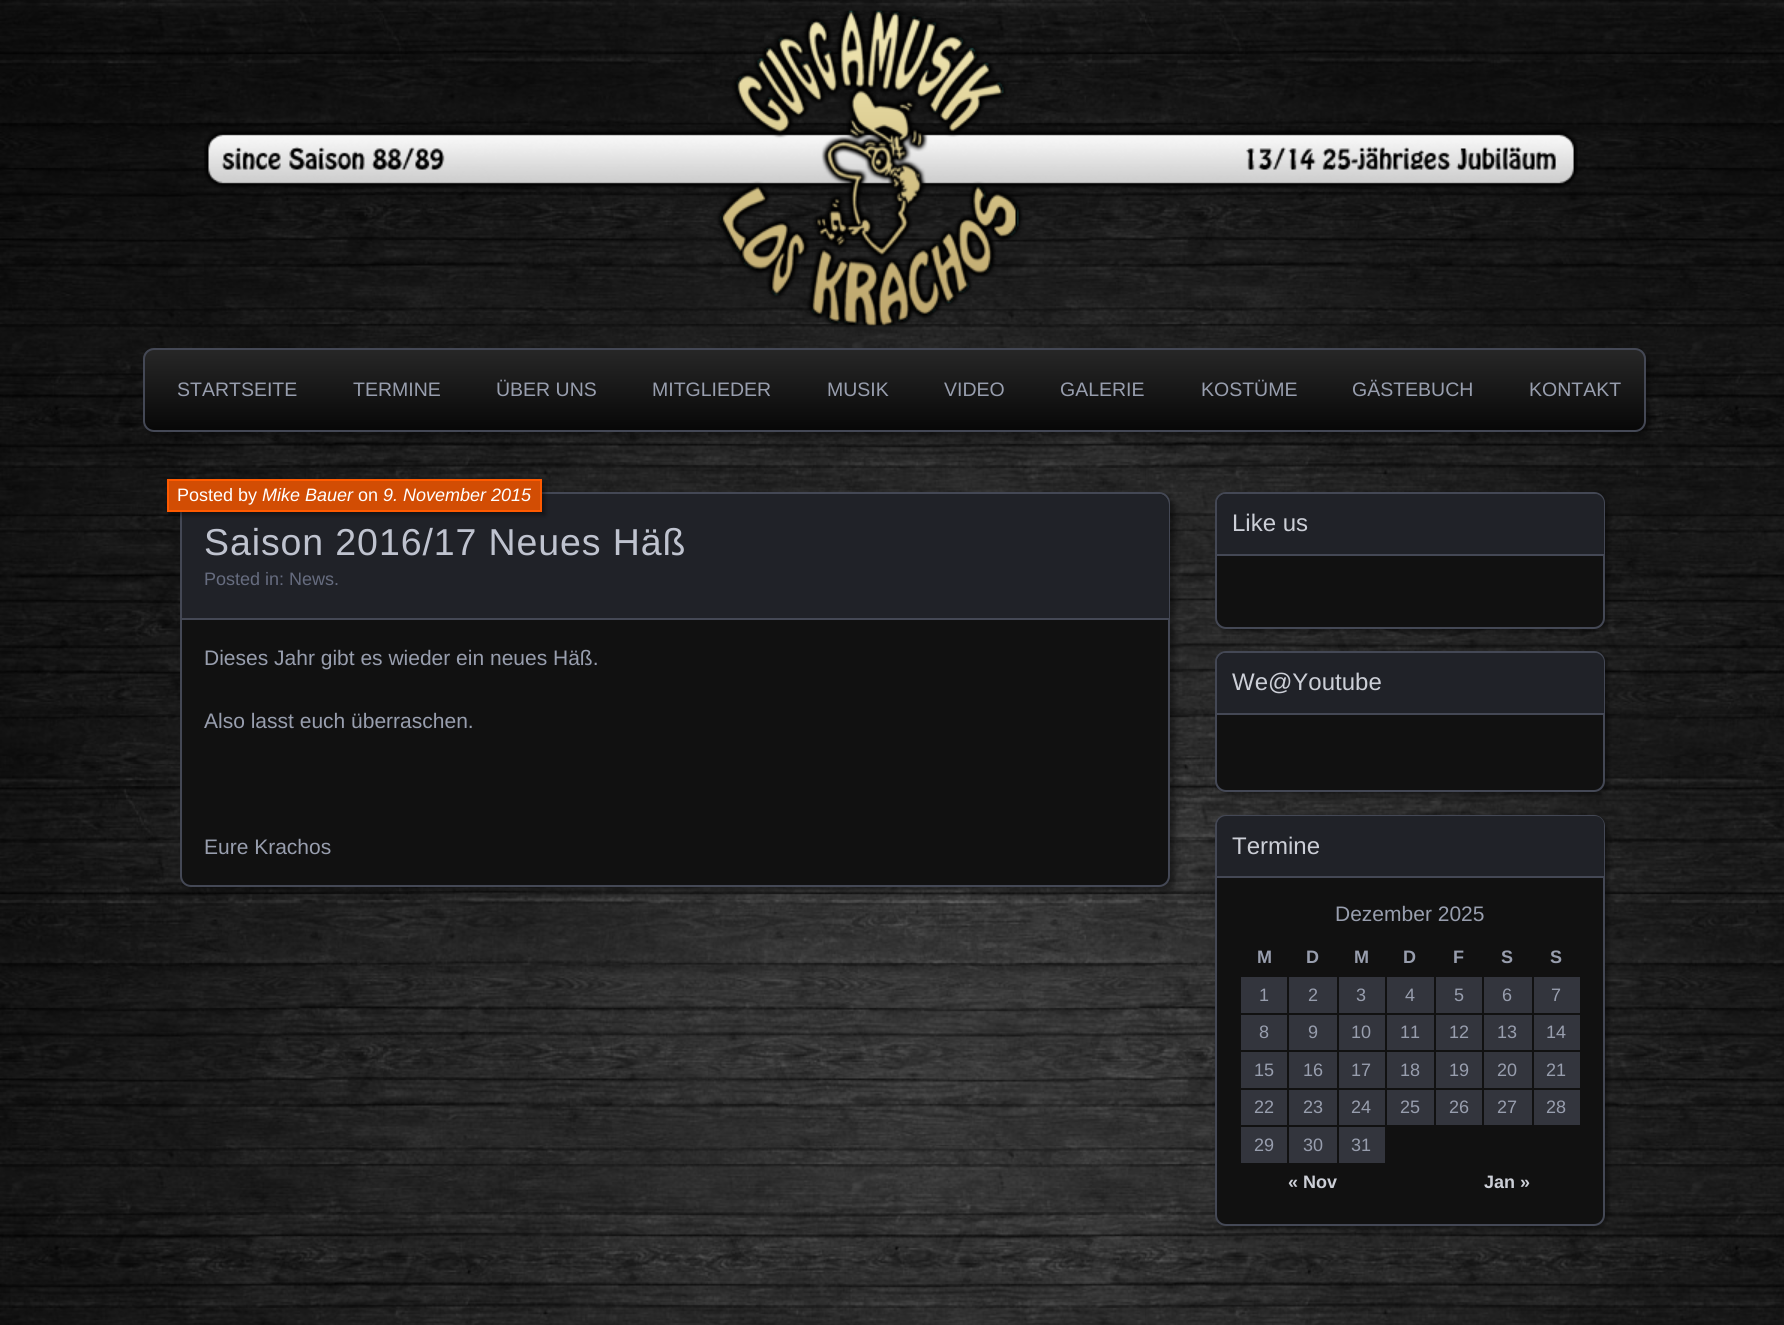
import math
import cairo



def draw_spaced(context, x, y, s, letter, word):
    context.move_to(x, y)
    for ch in s:
        context.show_text(ch)
        context.rel_move_to(letter + word * (ch == ' '), 0)


def rounded_rect(context, x, y, w, h, r):
    context.new_sub_path()
    for i, (u, v) in enumerate([(x + w - r, y + h - r), (x + r, y + h - r), (x + r, y + r), (x + w - r, y + r)]):
        context.arc(u, v, r, i * math.pi / 2, (i + 1) * math.pi / 2)
    context.close_path()


def draw_shadow(context, x, y, w, h, r, blur, alpha):
    context.push_group_with_content(cairo.Content.ALPHA)
    context.set_operator(cairo.Operator.SOURCE)
    for i in range(15, -16, -2):
        e = blur * i / 6
        if min(w, h) + 2 * e > 0:
            context.set_source_rgba(0, 0, 0, alpha * math.erfc((i - 1) / 8.5) / 2)
            rounded_rect(context, x - e, y - e, w + 2 * e, h + 2 * e, max(0, min(r + e + blur * .6, min(w, h) / 2 + e)))
            context.fill()
    context.mask(context.pop_group())


def draw_image(context, path, x, y, w, h):
    context.save()
    context.set_source_surface(cairo.ImageSurface.create_from_png(path), x, y)
    context.rectangle(x, y, w, h)
    context.fill()
    context.restore()


def draw(context):
    context.set_source_rgb(1, 1, 1)
    context.paint()
    draw_image(context, "images/1.png", 0, 0, 1784, 1325)
    draw_image(context, "images/2.png", 204, 10, 1374, 316)
    context.set_source_rgb(0, 0, 0)
    draw_shadow(context, 147, 353, 1503, 84, 11, 3, 0.45)
    context.save()
    rounded_rect(context, 143, 348, 1503, 84, 11)
    context.clip()
    gradient = cairo.LinearGradient(894, 349, 894, 431)
    gradient.add_color_stop_rgba(0.01, 39 / 255, 39 / 255, 39 / 255, 1)
    gradient.add_color_stop_rgba(1, 7 / 255, 7 / 255, 7 / 255, 1)
    context.set_source(gradient)
    context.rectangle(143, 350, 1503, 81)
    context.fill()
    context.restore()
    rounded_rect(context, 144, 349, 1501, 82, 10)
    context.set_source_rgb(68 / 255, 72 / 255, 85 / 255)
    context.stroke()
    context.set_source_rgb(0, 0, 0)
    draw_shadow(context, 185, 497, 990, 394, 11, 3, 0.45)
    context.set_source_rgb(17 / 255, 17 / 255, 17 / 255)
    rounded_rect(context, 181, 493, 988, 393, 10)
    context.fill_preserve()
    context.set_source_rgb(68 / 255, 72 / 255, 85 / 255)
    context.stroke()
    context.set_source_rgb(32 / 255, 34 / 255, 40 / 255)
    context.new_path()
    context.move_to(193, 494)
    context.line_to(1158, 494)
    context.curve_to(1164, 494, 1169, 499, 1169, 505)
    context.line_to(1169, 620)
    context.line_to(182, 620)
    context.line_to(182, 505)
    context.curve_to(182, 499, 187, 494, 193, 494)
    context.close_path()
    context.fill()
    context.set_source_rgb(68 / 255, 72 / 255, 85 / 255)
    context.rectangle(182, 618, 987, 2)
    context.fill()
    context.set_source_rgb(0, 0, 0)
    draw_shadow(context, 170, 482, 375, 33, 0, 2.5, 0.45)
    context.set_source_rgb(210 / 255, 77 / 255, 4 / 255)
    context.rectangle(168, 480, 373, 31)
    context.fill_preserve()
    context.set_source_rgb(1, 90 / 255, 0)
    context.stroke()
    context.set_source_rgb(0, 0, 0)
    draw_shadow(context, 1218, 495, 390, 137, 11, 2.5, 0.45)
    context.set_source_rgb(17 / 255, 17 / 255, 17 / 255)
    rounded_rect(context, 1216, 493, 388, 135, 10)
    context.fill_preserve()
    context.set_source_rgb(68 / 255, 72 / 255, 85 / 255)
    context.stroke()
    context.set_source_rgb(32 / 255, 34 / 255, 40 / 255)
    context.new_path()
    context.move_to(1226, 494)
    context.line_to(1595, 494)
    context.curve_to(1600, 494, 1604, 498, 1604, 503)
    context.line_to(1604, 555)
    context.line_to(1217, 555)
    context.line_to(1217, 503)
    context.curve_to(1217, 498, 1221, 494, 1226, 494)
    context.close_path()
    context.fill()
    context.set_source_rgb(68 / 255, 72 / 255, 85 / 255)
    context.rectangle(1217, 554, 387, 2)
    context.fill()
    context.set_source_rgb(0, 0, 0)
    draw_shadow(context, 1218, 654, 390, 141, 11, 2.5, 0.45)
    context.set_source_rgb(17 / 255, 17 / 255, 17 / 255)
    rounded_rect(context, 1216, 652, 388, 139, 10)
    context.fill_preserve()
    context.set_source_rgb(68 / 255, 72 / 255, 85 / 255)
    context.stroke()
    context.set_source_rgb(32 / 255, 34 / 255, 40 / 255)
    context.new_path()
    context.move_to(1226, 653)
    context.line_to(1595, 653)
    context.curve_to(1600, 653, 1604, 657, 1604, 662)
    context.line_to(1604, 714)
    context.line_to(1217, 714)
    context.line_to(1217, 662)
    context.curve_to(1217, 657, 1221, 653, 1226, 653)
    context.close_path()
    context.fill()
    context.set_source_rgb(68 / 255, 72 / 255, 85 / 255)
    context.rectangle(1217, 713, 387, 2)
    context.fill()
    context.set_source_rgb(0, 0, 0)
    draw_shadow(context, 1218, 818, 390, 411, 11, 2.5, 0.45)
    context.set_source_rgb(17 / 255, 17 / 255, 17 / 255)
    rounded_rect(context, 1216, 816, 388, 409, 10)
    context.fill_preserve()
    context.set_source_rgb(68 / 255, 72 / 255, 85 / 255)
    context.stroke()
    context.set_source_rgb(32 / 255, 34 / 255, 40 / 255)
    context.new_path()
    context.move_to(1226, 816)
    context.line_to(1595, 816)
    context.curve_to(1600, 816, 1604, 820, 1604, 825)
    context.line_to(1604, 878)
    context.line_to(1217, 878)
    context.line_to(1217, 825)
    context.curve_to(1217, 820, 1221, 816, 1226, 816)
    context.close_path()
    context.fill()
    context.set_source_rgb(68 / 255, 72 / 255, 85 / 255)
    context.rectangle(1217, 876, 387, 2)
    context.fill()
    context.set_source_rgb(51 / 255, 53 / 255, 61 / 255)
    context.rectangle(1241, 977, 46, 36)
    context.fill()
    context.rectangle(1289, 977, 48, 36)
    context.fill()
    context.rectangle(1339, 977, 46, 36)
    context.fill()
    context.rectangle(1387, 977, 47, 36)
    context.fill()
    context.rectangle(1436, 977, 46, 36)
    context.fill()
    context.rectangle(1484, 977, 48, 36)
    context.fill()
    context.rectangle(1534, 977, 46, 36)
    context.fill()
    context.rectangle(1241, 1015, 46, 35)
    context.fill()
    context.rectangle(1289, 1015, 48, 35)
    context.fill()
    context.rectangle(1339, 1015, 46, 35)
    context.fill()
    context.rectangle(1387, 1015, 47, 35)
    context.fill()
    context.rectangle(1436, 1015, 46, 35)
    context.fill()
    context.rectangle(1484, 1015, 48, 35)
    context.fill()
    context.rectangle(1534, 1015, 46, 35)
    context.fill()
    context.rectangle(1241, 1052, 46, 36)
    context.fill()
    context.rectangle(1289, 1052, 48, 36)
    context.fill()
    context.rectangle(1339, 1052, 46, 36)
    context.fill()
    context.rectangle(1387, 1052, 47, 36)
    context.fill()
    context.rectangle(1436, 1052, 46, 36)
    context.fill()
    context.rectangle(1484, 1052, 48, 36)
    context.fill()
    context.rectangle(1534, 1052, 46, 36)
    context.fill()
    context.rectangle(1241, 1090, 46, 35)
    context.fill()
    context.rectangle(1289, 1090, 48, 35)
    context.fill()
    context.rectangle(1339, 1090, 46, 35)
    context.fill()
    context.rectangle(1387, 1090, 47, 35)
    context.fill()
    context.rectangle(1436, 1090, 46, 35)
    context.fill()
    context.rectangle(1484, 1090, 48, 35)
    context.fill()
    context.rectangle(1534, 1090, 46, 35)
    context.fill()
    context.rectangle(1241, 1127, 46, 36)
    context.fill()
    context.rectangle(1289, 1127, 48, 36)
    context.fill()
    context.rectangle(1339, 1127, 46, 36)
    context.fill()
    context.select_font_face("Liberation Sans")
    context.set_font_size(19.5)
    context.set_source_rgb(152 / 255, 158 / 255, 174 / 255)
    context.move_to(177, 396)
    context.show_text("STARTSEITE")
    context.move_to(353, 396)
    context.show_text("TERMINE")
    context.move_to(496, 396)
    context.show_text("ÜBER UNS")
    context.move_to(652, 396)
    context.show_text("MITGLIEDER")
    context.move_to(827, 396)
    context.show_text("MUSIK")
    context.move_to(944, 396)
    context.show_text("VIDEO")
    context.move_to(1060, 396)
    context.show_text("GALERIE")
    context.move_to(1201, 396)
    context.show_text("KOSTÜME")
    context.move_to(1352, 396)
    context.show_text("GÄSTEBUCH")
    context.move_to(1529, 396)
    context.show_text("KONTAKT")
    context.set_font_size(18)
    context.set_source_rgb(1, 1, 1)
    context.move_to(177, 501)
    context.show_text("Posted by")
    context.select_font_face("Liberation Sans", cairo.FontSlant.ITALIC)
    context.move_to(262, 501)
    context.show_text("Mike Bauer")
    context.select_font_face("Liberation Sans")
    context.move_to(358, 501)
    context.show_text("on")
    context.select_font_face("Liberation Sans", cairo.FontSlant.ITALIC)
    context.move_to(383, 501)
    context.show_text("9. November 2015")
    context.select_font_face("Liberation Sans")
    context.set_font_size(37.5)
    context.set_source_rgb(191 / 255, 195 / 255, 207 / 255)
    draw_spaced(context, 204, 555, "Saison 2016/17 Neues Häß", 0.9, 0)
    context.set_font_size(18)
    context.set_source_rgb(102 / 255, 108 / 255, 127 / 255)
    context.move_to(204, 585)
    context.show_text("Posted in: News.")
    context.set_font_size(21)
    context.set_source_rgb(152 / 255, 158 / 255, 174 / 255)
    context.move_to(204, 665)
    context.show_text("Dieses Jahr gibt es wieder ein neues Häß.")
    context.move_to(204, 728)
    context.show_text("Also lasst euch überraschen.")
    context.move_to(204, 854)
    context.show_text("Eure Krachos")
    context.set_font_size(24)
    context.set_source_rgb(204 / 255, 207 / 255, 215 / 255)
    context.move_to(1232, 531)
    context.show_text("Like us")
    context.move_to(1232, 690)
    context.show_text("We@Youtube")
    context.move_to(1232, 854)
    context.show_text("Termine")
    context.set_font_size(21)
    context.set_source_rgb(152 / 255, 158 / 255, 174 / 255)
    context.move_to(1335, 921)
    context.show_text("Dezember 2025")
    context.select_font_face("Liberation Sans", cairo.FontSlant.NORMAL, cairo.FontWeight.BOLD)
    context.set_font_size(18)
    context.move_to(1257, 963)
    context.show_text("M")
    context.move_to(1306, 963)
    context.show_text("D")
    context.move_to(1354, 963)
    context.show_text("M")
    context.move_to(1403, 963)
    context.show_text("D")
    context.move_to(1453, 963)
    context.show_text("F")
    context.move_to(1501, 963)
    context.show_text("S")
    context.move_to(1550, 963)
    context.show_text("S")
    context.select_font_face("Liberation Sans")
    context.move_to(1259, 1001)
    context.show_text("1")
    context.move_to(1308, 1001)
    context.show_text("2")
    context.move_to(1356, 1001)
    context.show_text("3")
    context.move_to(1405, 1001)
    context.show_text("4")
    context.move_to(1454, 1001)
    context.show_text("5")
    context.move_to(1502, 1001)
    context.show_text("6")
    context.move_to(1551, 1001)
    context.show_text("7")
    context.move_to(1259, 1038)
    context.show_text("8")
    context.move_to(1308, 1038)
    context.show_text("9")
    context.move_to(1351, 1038)
    context.show_text("10")
    context.move_to(1400, 1038)
    context.show_text("11")
    context.move_to(1449, 1038)
    context.show_text("12")
    context.move_to(1497, 1038)
    context.show_text("13")
    context.move_to(1546, 1038)
    context.show_text("14")
    context.move_to(1254, 1076)
    context.show_text("15")
    context.move_to(1303, 1076)
    context.show_text("16")
    context.move_to(1351, 1076)
    context.show_text("17")
    context.move_to(1400, 1076)
    context.show_text("18")
    context.move_to(1449, 1076)
    context.show_text("19")
    context.move_to(1497, 1076)
    context.show_text("20")
    context.move_to(1546, 1076)
    context.show_text("21")
    context.move_to(1254, 1113)
    context.show_text("22")
    context.move_to(1303, 1113)
    context.show_text("23")
    context.move_to(1351, 1113)
    context.show_text("24")
    context.move_to(1400, 1113)
    context.show_text("25")
    context.move_to(1449, 1113)
    context.show_text("26")
    context.move_to(1497, 1113)
    context.show_text("27")
    context.move_to(1546, 1113)
    context.show_text("28")
    context.move_to(1254, 1151)
    context.show_text("29")
    context.move_to(1303, 1151)
    context.show_text("30")
    context.move_to(1351, 1151)
    context.show_text("31")
    context.select_font_face("Liberation Sans", cairo.FontSlant.NORMAL, cairo.FontWeight.BOLD)
    context.set_source_rgb(204 / 255, 207 / 255, 215 / 255)
    context.move_to(1288, 1188)
    context.show_text("« Nov")
    context.move_to(1484, 1188)
    context.show_text("Jan »")


surface = cairo.ImageSurface(cairo.Format.RGB24, 1784, 1325)
context = cairo.Context(surface)
options = cairo.FontOptions()
options.set_hint_metrics(cairo.HintMetrics.OFF)
options.set_hint_style(cairo.HintStyle.NONE)
context.set_font_options(options)
context.set_miter_limit(4)
draw(context)
surface.write_to_png("out.png")
